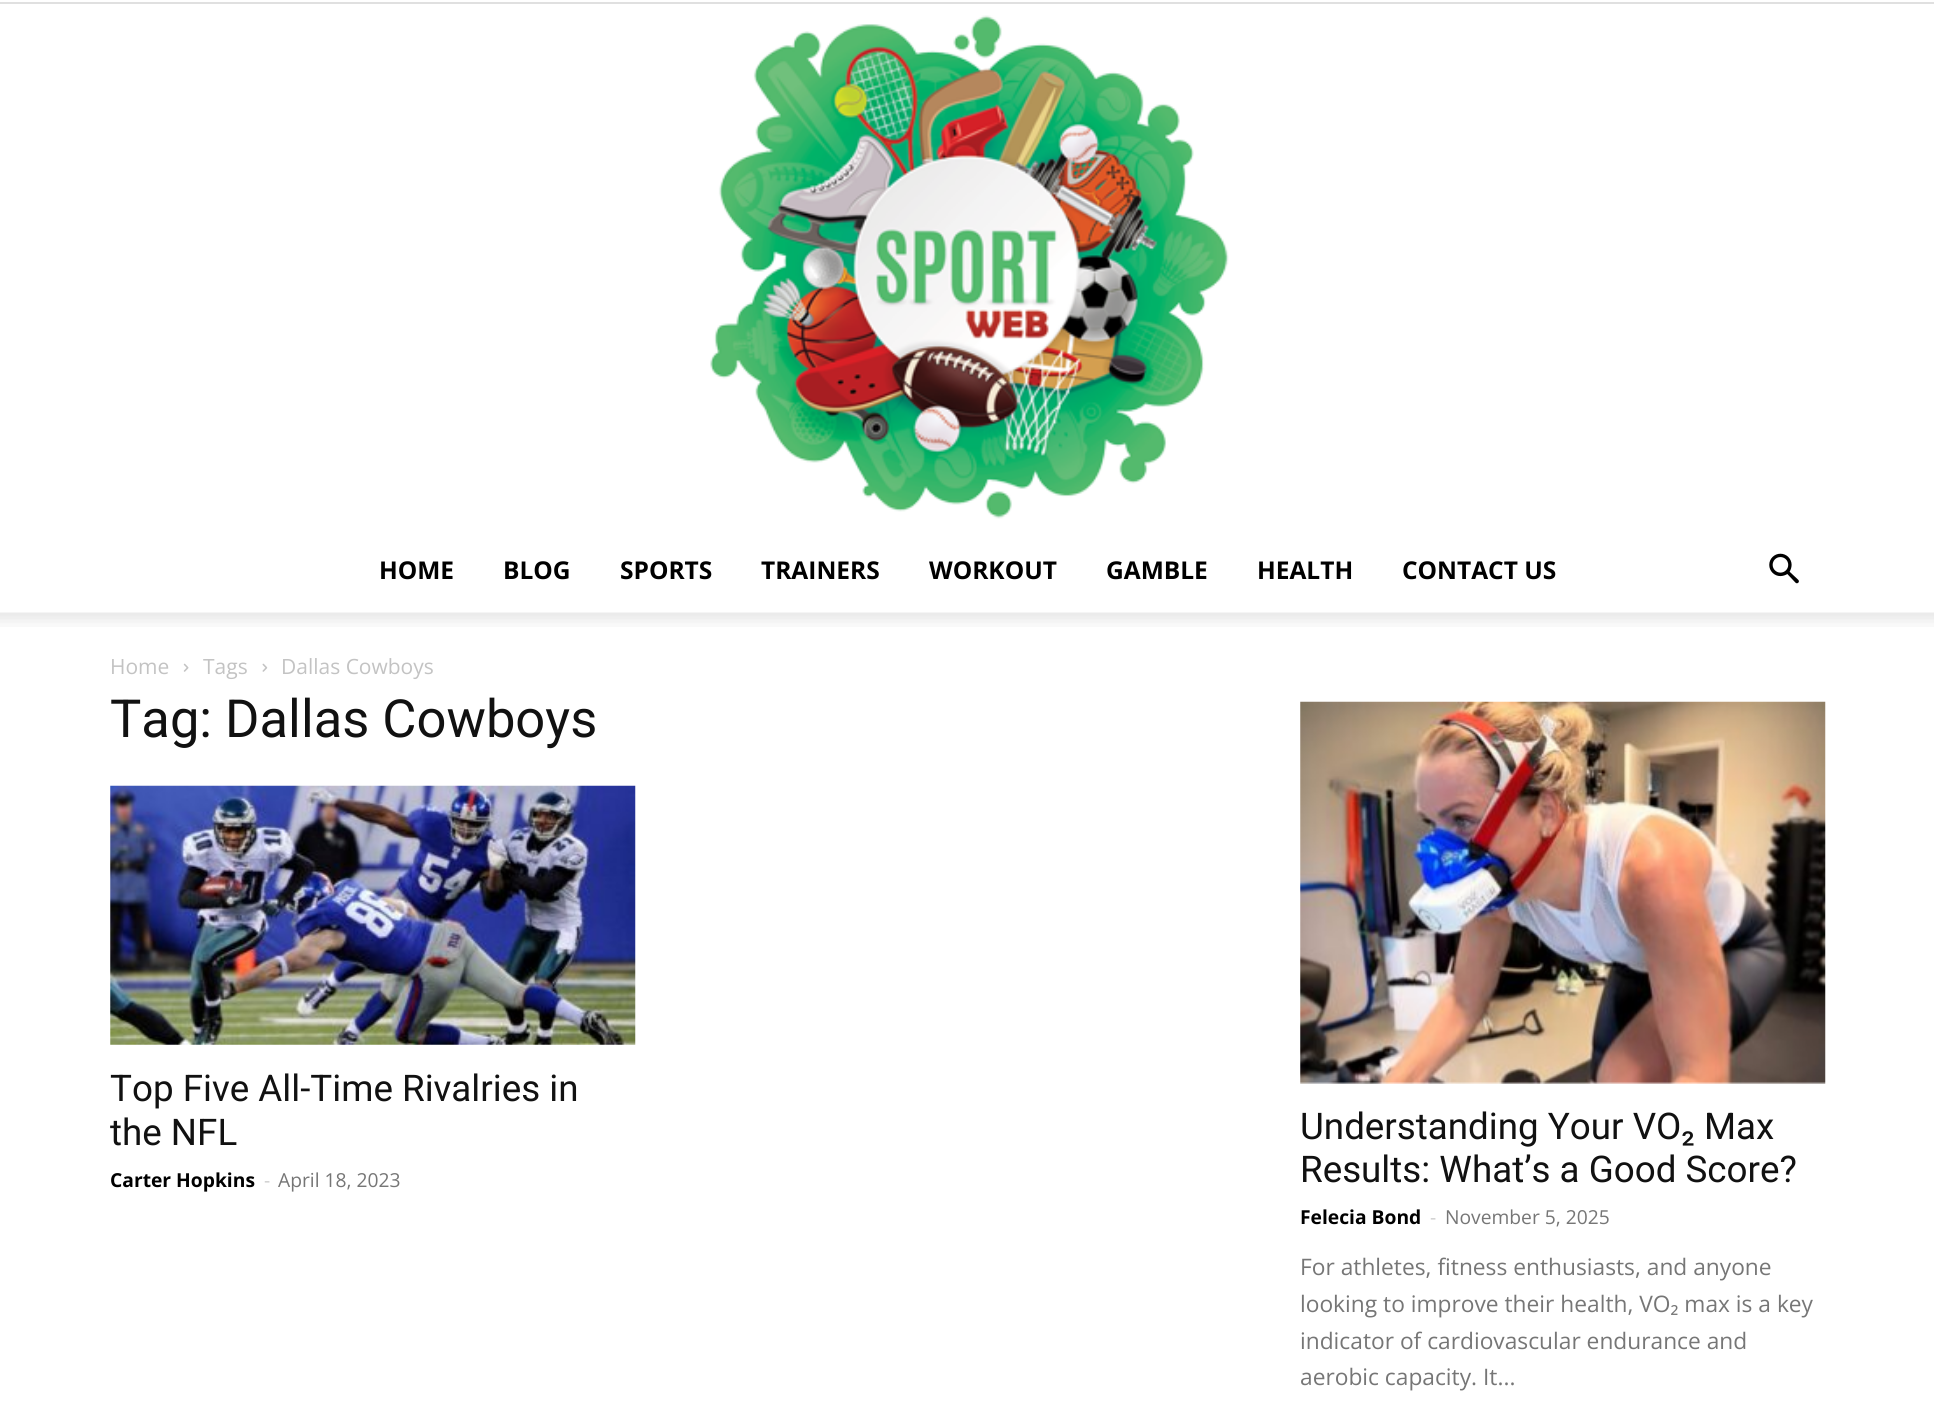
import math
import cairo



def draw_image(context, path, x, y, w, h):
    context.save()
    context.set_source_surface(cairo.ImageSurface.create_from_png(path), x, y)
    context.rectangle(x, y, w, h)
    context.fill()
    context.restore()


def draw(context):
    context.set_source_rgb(1, 1, 1)
    context.paint()
    context.set_source_rgb(224 / 255, 224 / 255, 224 / 255)
    context.rectangle(0, 2, 1934, 2)
    context.fill()
    draw_image(context, "images/1.png", 710, 15, 519, 504)
    draw_image(context, "images/2.png", 1769, 553, 30, 31)
    draw_image(context, "images/3.png", 0, 612, 1934, 15)
    draw_image(context, "images/4.png", 183, 663, 6, 9)
    draw_image(context, "images/5.png", 262, 663, 6, 9)
    draw_image(context, "images/6.png", 110, 785, 526, 260)
    draw_image(context, "images/7.png", 1300, 701, 526, 383)
    context.select_font_face("Open Sans", cairo.FontSlant.NORMAL, cairo.FontWeight.BOLD)
    context.set_font_size(24.5)
    context.set_source_rgb(0, 0, 0)
    context.move_to(379, 579)
    context.show_text("HOME")
    context.move_to(503, 579)
    context.show_text("BLOG")
    context.move_to(620, 579)
    context.show_text("SPORTS")
    context.move_to(761, 579)
    context.show_text("TRAINERS")
    context.move_to(929, 579)
    context.show_text("WORKOUT")
    context.move_to(1106, 579)
    context.show_text("GAMBLE")
    context.move_to(1257, 579)
    context.show_text("HEALTH")
    context.move_to(1402, 579)
    context.show_text("CONTACT US")
    context.select_font_face("Open Sans")
    context.set_font_size(21)
    context.set_source_rgb(195 / 255, 195 / 255, 195 / 255)
    context.move_to(110, 674)
    context.show_text("Home")
    context.move_to(203, 674)
    context.show_text("Tags")
    context.move_to(281, 674)
    context.show_text("Dallas Cowboys")
    context.select_font_face("Roboto")
    context.set_font_size(52.5)
    context.set_source_rgb(17 / 255, 17 / 255, 17 / 255)
    context.move_to(110, 737)
    context.show_text("Tag: Dallas Cowboys")
    context.set_font_size(36.75)
    context.move_to(110, 1101)
    context.show_text("Top Five All-Time Rivalries in")
    context.move_to(110, 1145)
    context.show_text("the NFL")
    context.select_font_face("Open Sans", cairo.FontSlant.NORMAL, cairo.FontWeight.BOLD)
    context.set_font_size(19.25)
    context.set_source_rgb(0, 0, 0)
    context.move_to(110, 1187)
    context.show_text("Carter Hopkins")
    context.select_font_face("Open Sans")
    context.set_source_rgb(204 / 255, 204 / 255, 204 / 255)
    context.move_to(264, 1187)
    context.show_text("-")
    context.set_source_rgb(118 / 255, 118 / 255, 118 / 255)
    context.move_to(278, 1187)
    context.show_text("April 18, 2023")
    context.select_font_face("Roboto")
    context.set_font_size(36.75)
    context.set_source_rgb(17 / 255, 17 / 255, 17 / 255)
    context.move_to(1300, 1139)
    context.show_text("Understanding Your VO₂ Max")
    context.move_to(1300, 1182)
    context.show_text("Results: What’s a Good Score?")
    context.select_font_face("Open Sans", cairo.FontSlant.NORMAL, cairo.FontWeight.BOLD)
    context.set_font_size(19.25)
    context.set_source_rgb(0, 0, 0)
    context.move_to(1300, 1224)
    context.show_text("Felecia Bond")
    context.select_font_face("Open Sans")
    context.set_source_rgb(204 / 255, 204 / 255, 204 / 255)
    context.move_to(1430, 1224)
    context.show_text("-")
    context.set_source_rgb(118 / 255, 118 / 255, 118 / 255)
    context.move_to(1445, 1224)
    context.show_text("November 5, 2025")
    context.set_font_size(22.75)
    context.move_to(1300, 1275)
    context.show_text("For athletes, fitness enthusiasts, and anyone")
    context.move_to(1300, 1312)
    context.show_text("looking to improve their health, VO₂ max is a key")
    context.move_to(1300, 1349)
    context.show_text("indicator of cardiovascular endurance and")
    context.move_to(1300, 1385)
    context.show_text("aerobic capacity. It...")


surface = cairo.ImageSurface(cairo.Format.RGB24, 1934, 1413)
context = cairo.Context(surface)
options = cairo.FontOptions()
options.set_hint_metrics(cairo.HintMetrics.OFF)
options.set_hint_style(cairo.HintStyle.NONE)
context.set_font_options(options)
context.set_miter_limit(4)
draw(context)
surface.write_to_png("out.png")
